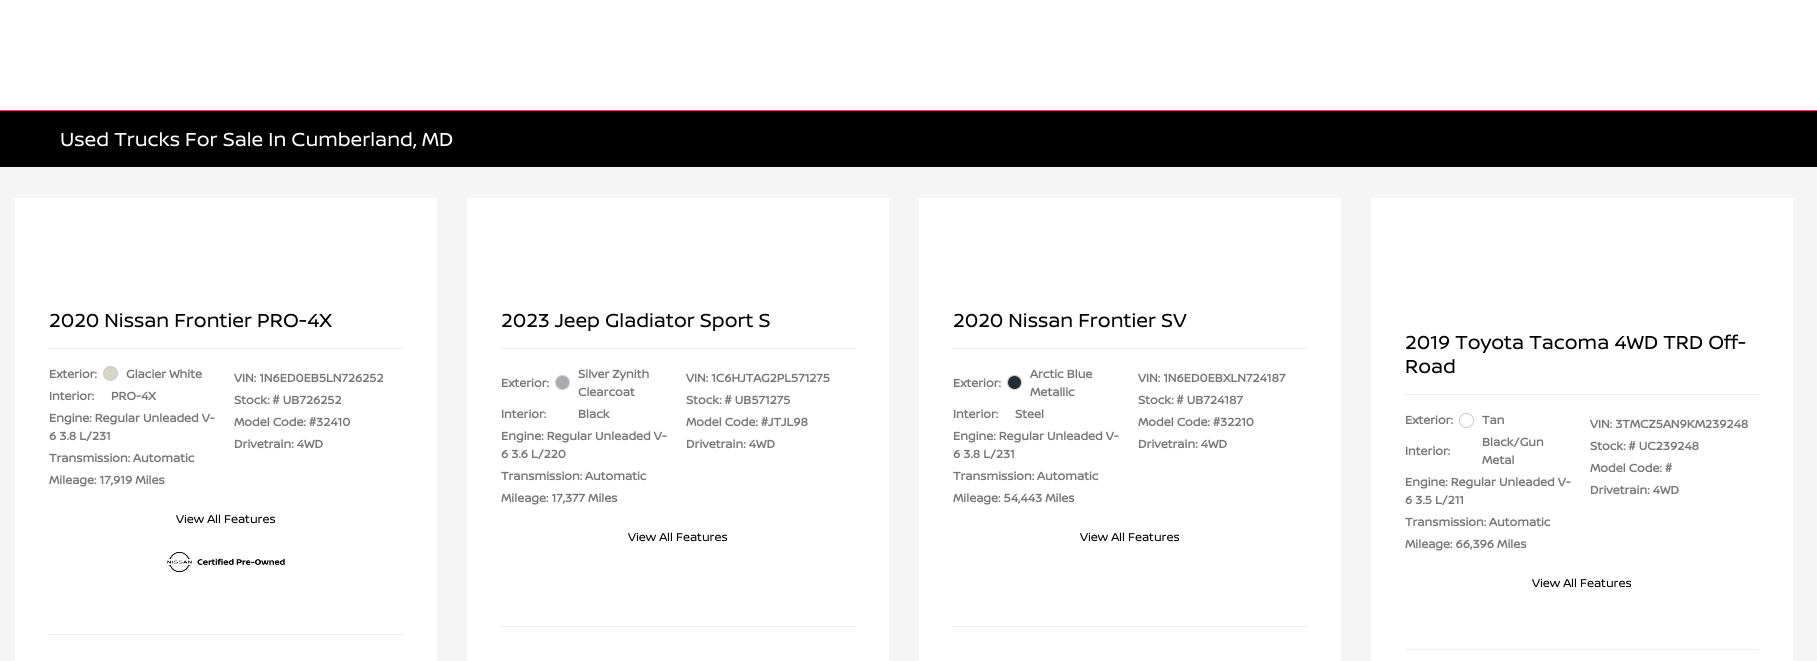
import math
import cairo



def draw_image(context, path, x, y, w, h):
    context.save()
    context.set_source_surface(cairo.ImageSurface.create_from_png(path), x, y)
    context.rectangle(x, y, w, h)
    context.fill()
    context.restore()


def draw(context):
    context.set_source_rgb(1, 1, 1)
    context.paint()
    context.set_source_rgb(245 / 255, 245 / 255, 245 / 255)
    context.rectangle(0, 167, 1817, 494)
    context.fill()
    context.set_source_rgb(0, 0, 0)
    context.rectangle(0, 111, 1817, 56)
    context.fill()
    context.set_source_rgb(203 / 255, 74 / 255, 105 / 255)
    context.rectangle(0, 110, 1817, 1)
    context.fill()
    context.set_source_rgb(1, 1, 1)
    context.rectangle(15, 198, 422, 463)
    context.fill()
    context.set_source_rgb(237 / 255, 237 / 255, 237 / 255)
    context.rectangle(49, 348, 354, 1)
    context.fill()
    context.set_source_rgb(214 / 255, 212 / 255, 198 / 255)
    context.arc(110.5, 373.5, 7, 0, 2 * math.pi)
    context.fill_preserve()
    context.set_source_rgb(204 / 255, 204 / 255, 204 / 255)
    context.set_line_width(1)
    context.stroke()
    draw_image(context, "images/1.png", 167, 552, 118, 20)
    context.set_source_rgb(237 / 255, 237 / 255, 237 / 255)
    context.rectangle(49, 634, 354, 1)
    context.fill()
    context.set_source_rgb(1, 1, 1)
    context.rectangle(467, 198, 422, 463)
    context.fill()
    context.set_source_rgb(237 / 255, 237 / 255, 237 / 255)
    context.rectangle(501, 348, 354, 1)
    context.fill()
    context.set_source_rgb(169 / 255, 171 / 255, 174 / 255)
    context.arc(562.5, 382.5, 7, 0, 2 * math.pi)
    context.fill_preserve()
    context.set_source_rgb(204 / 255, 204 / 255, 204 / 255)
    context.stroke()
    context.set_source_rgb(237 / 255, 237 / 255, 237 / 255)
    context.rectangle(501, 626, 354, 1)
    context.fill()
    context.set_source_rgb(1, 1, 1)
    context.rectangle(919, 198, 422, 463)
    context.fill()
    context.set_source_rgb(237 / 255, 237 / 255, 237 / 255)
    context.rectangle(953, 348, 354, 1)
    context.fill()
    context.set_source_rgb(35 / 255, 45 / 255, 53 / 255)
    context.arc(1014.5, 382.5, 7, 0, 2 * math.pi)
    context.fill_preserve()
    context.set_source_rgb(204 / 255, 204 / 255, 204 / 255)
    context.stroke()
    context.set_source_rgb(237 / 255, 237 / 255, 237 / 255)
    context.rectangle(953, 626, 354, 1)
    context.fill()
    context.set_source_rgb(1, 1, 1)
    context.rectangle(1371, 198, 422, 463)
    context.fill()
    context.set_source_rgb(237 / 255, 237 / 255, 237 / 255)
    context.rectangle(1405, 394, 354, 1)
    context.fill()
    context.arc(1466.5, 420.5, 7, 0, 2 * math.pi)
    context.set_source_rgb(204 / 255, 204 / 255, 204 / 255)
    context.stroke()
    context.set_source_rgb(237 / 255, 237 / 255, 237 / 255)
    context.rectangle(1405, 649, 354, 1)
    context.fill()
    context.select_font_face("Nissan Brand")
    context.set_font_size(20)
    context.set_source_rgb(1, 1, 1)
    context.move_to(60, 146)
    context.show_text("Used Trucks For Sale In Cumberland, MD")
    context.set_source_rgb(0, 0, 0)
    context.move_to(49, 327)
    context.show_text("2020 Nissan Frontier PRO-4X")
    context.select_font_face("Nissan Brand", cairo.FontSlant.NORMAL, cairo.FontWeight.BOLD)
    context.set_font_size(12)
    context.set_source_rgb(121 / 255, 120 / 255, 120 / 255)
    context.move_to(49, 378)
    context.show_text("Exterior:")
    context.move_to(126, 378)
    context.show_text("Glacier White")
    context.move_to(49, 400)
    context.show_text("Interior:")
    context.move_to(111, 400)
    context.show_text("PRO-4X")
    context.move_to(49, 422)
    context.show_text("Engine: Regular Unleaded V-")
    context.move_to(49, 440)
    context.show_text("6 3.8 L/231")
    context.move_to(49, 462)
    context.show_text("Transmission: Automatic")
    context.move_to(49, 484)
    context.show_text("Mileage: 17,919 Miles")
    context.move_to(234, 382)
    context.show_text("VIN: 1N6ED0EB5LN726252")
    context.move_to(234, 404)
    context.show_text("Stock: # UB726252")
    context.move_to(234, 426)
    context.show_text("Model Code: #32410")
    context.move_to(234, 448)
    context.show_text("Drivetrain: 4WD")
    context.select_font_face("Nissan Brand")
    context.set_source_rgb(0, 0, 0)
    context.move_to(176, 523)
    context.show_text("View All Features")
    context.set_font_size(20)
    context.move_to(501, 327)
    context.show_text("2023 Jeep Gladiator Sport S")
    context.select_font_face("Nissan Brand", cairo.FontSlant.NORMAL, cairo.FontWeight.BOLD)
    context.set_font_size(12)
    context.set_source_rgb(121 / 255, 120 / 255, 120 / 255)
    context.move_to(501, 387)
    context.show_text("Exterior:")
    context.move_to(578, 378)
    context.show_text("Silver Zynith")
    context.move_to(578, 396)
    context.show_text("Clearcoat")
    context.move_to(501, 418)
    context.show_text("Interior:")
    context.move_to(578, 418)
    context.show_text("Black")
    context.move_to(501, 440)
    context.show_text("Engine: Regular Unleaded V-")
    context.move_to(501, 458)
    context.show_text("6 3.6 L/220")
    context.move_to(501, 480)
    context.show_text("Transmission: Automatic")
    context.move_to(501, 502)
    context.show_text("Mileage: 17,377 Miles")
    context.move_to(686, 382)
    context.show_text("VIN: 1C6HJTAG2PL571275")
    context.move_to(686, 404)
    context.show_text("Stock: # UB571275")
    context.move_to(686, 426)
    context.show_text("Model Code: #JTJL98")
    context.move_to(686, 448)
    context.show_text("Drivetrain: 4WD")
    context.select_font_face("Nissan Brand")
    context.set_source_rgb(0, 0, 0)
    context.move_to(628, 541)
    context.show_text("View All Features")
    context.set_font_size(20)
    context.move_to(953, 327)
    context.show_text("2020 Nissan Frontier SV")
    context.select_font_face("Nissan Brand", cairo.FontSlant.NORMAL, cairo.FontWeight.BOLD)
    context.set_font_size(12)
    context.set_source_rgb(121 / 255, 120 / 255, 120 / 255)
    context.move_to(953, 387)
    context.show_text("Exterior:")
    context.move_to(1030, 378)
    context.show_text("Arctic Blue")
    context.move_to(1030, 396)
    context.show_text("Metallic")
    context.move_to(953, 418)
    context.show_text("Interior:")
    context.move_to(1015, 418)
    context.show_text("Steel")
    context.move_to(953, 440)
    context.show_text("Engine: Regular Unleaded V-")
    context.move_to(953, 458)
    context.show_text("6 3.8 L/231")
    context.move_to(953, 480)
    context.show_text("Transmission: Automatic")
    context.move_to(953, 502)
    context.show_text("Mileage: 54,443 Miles")
    context.move_to(1138, 382)
    context.show_text("VIN: 1N6ED0EBXLN724187")
    context.move_to(1138, 404)
    context.show_text("Stock: # UB724187")
    context.move_to(1138, 426)
    context.show_text("Model Code: #32210")
    context.move_to(1138, 448)
    context.show_text("Drivetrain: 4WD")
    context.select_font_face("Nissan Brand")
    context.set_source_rgb(0, 0, 0)
    context.move_to(1080, 541)
    context.show_text("View All Features")
    context.set_font_size(20)
    context.move_to(1405, 349)
    context.show_text("2019 Toyota Tacoma 4WD TRD Off-")
    context.move_to(1405, 373)
    context.show_text("Road")
    context.select_font_face("Nissan Brand", cairo.FontSlant.NORMAL, cairo.FontWeight.BOLD)
    context.set_font_size(12)
    context.set_source_rgb(121 / 255, 120 / 255, 120 / 255)
    context.move_to(1405, 424)
    context.show_text("Exterior:")
    context.move_to(1482, 424)
    context.show_text("Tan")
    context.move_to(1405, 455)
    context.show_text("Interior:")
    context.move_to(1482, 446)
    context.show_text("Black/Gun")
    context.move_to(1482, 464)
    context.show_text("Metal")
    context.move_to(1405, 486)
    context.show_text("Engine: Regular Unleaded V-")
    context.move_to(1405, 504)
    context.show_text("6 3.5 L/211")
    context.move_to(1405, 526)
    context.show_text("Transmission: Automatic")
    context.move_to(1405, 548)
    context.show_text("Mileage: 66,396 Miles")
    context.move_to(1590, 428)
    context.show_text("VIN: 3TMCZ5AN9KM239248")
    context.move_to(1590, 450)
    context.show_text("Stock: # UC239248")
    context.move_to(1590, 472)
    context.show_text("Model Code: #")
    context.move_to(1590, 494)
    context.show_text("Drivetrain: 4WD")
    context.select_font_face("Nissan Brand")
    context.set_source_rgb(0, 0, 0)
    context.move_to(1532, 587)
    context.show_text("View All Features")


surface = cairo.ImageSurface(cairo.Format.RGB24, 1817, 661)
context = cairo.Context(surface)
options = cairo.FontOptions()
options.set_hint_metrics(cairo.HintMetrics.OFF)
options.set_hint_style(cairo.HintStyle.NONE)
context.set_font_options(options)
context.set_miter_limit(4)
draw(context)
surface.write_to_png("out.png")
